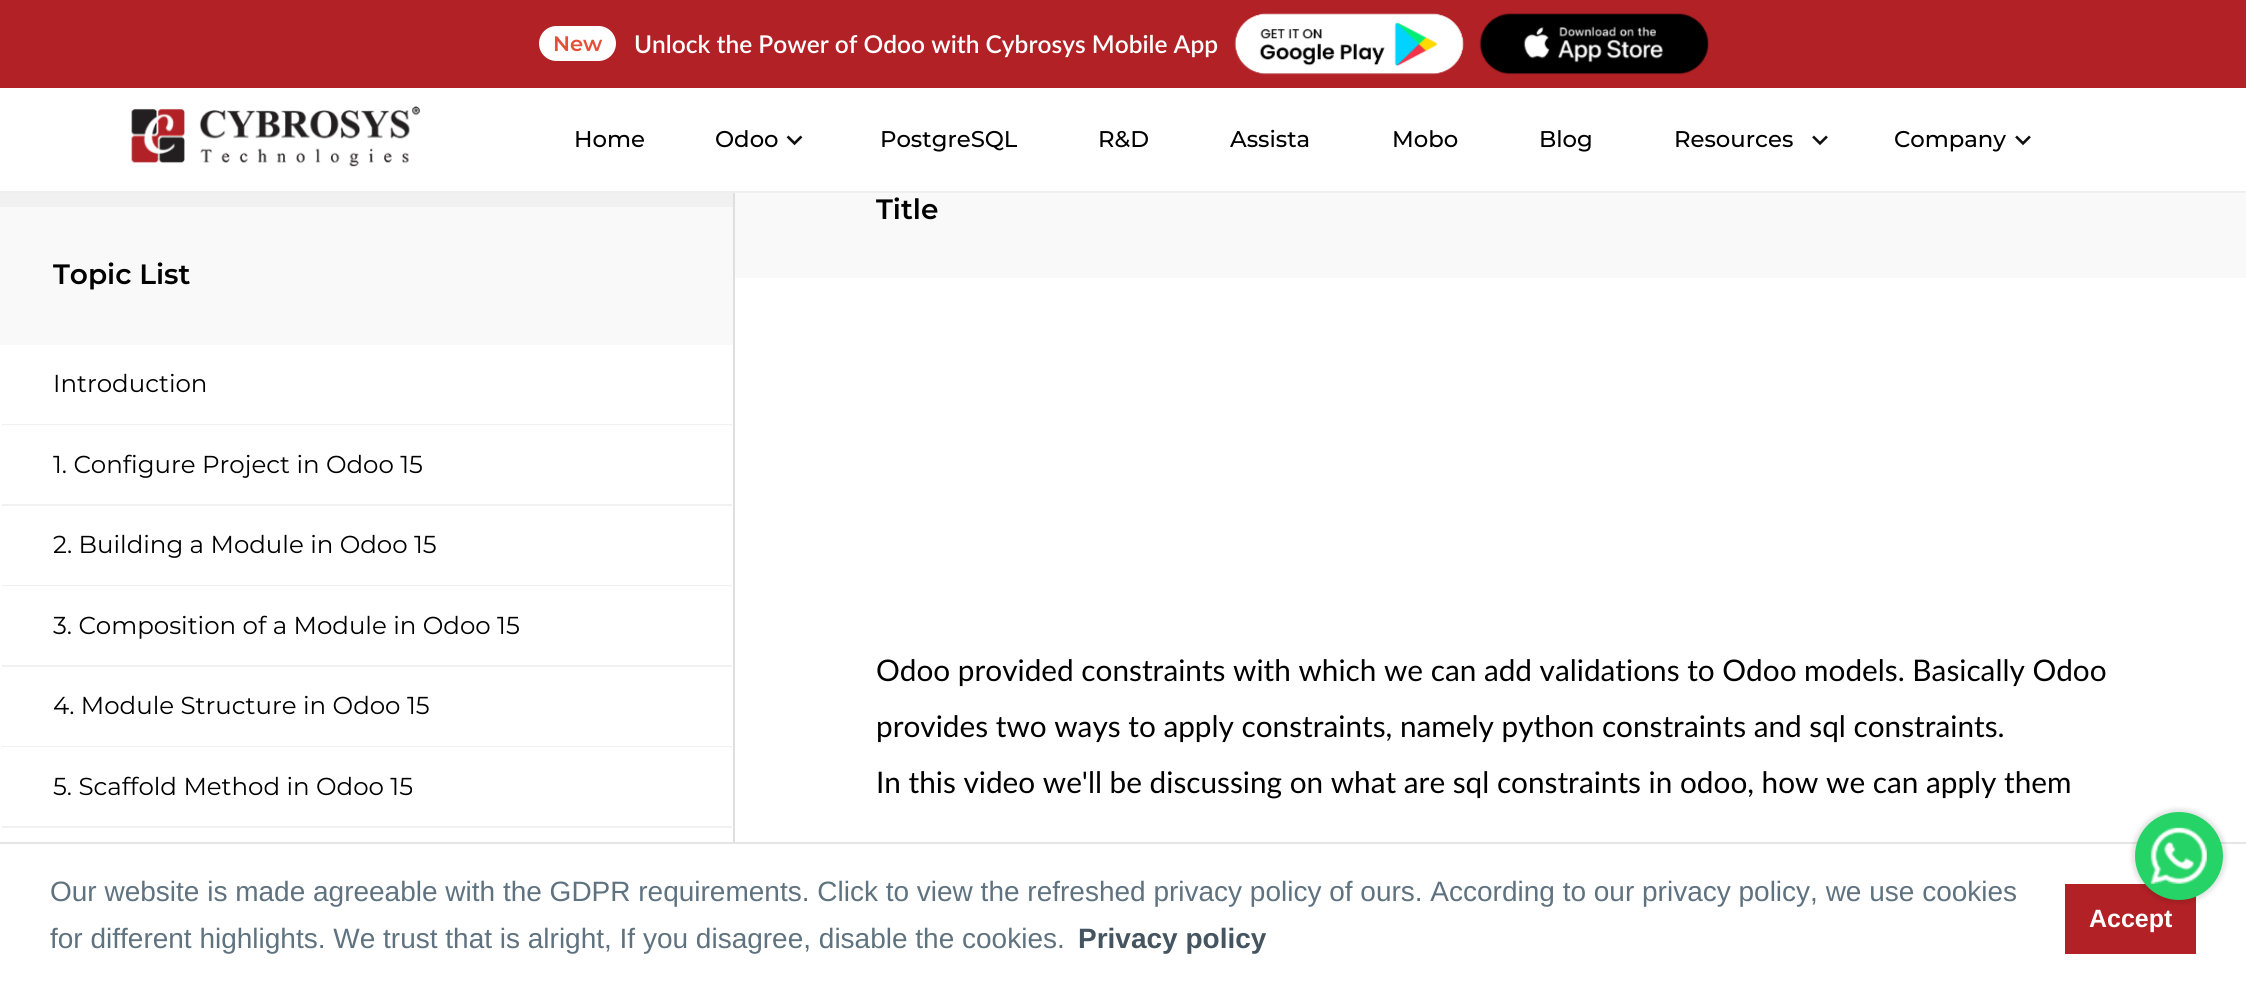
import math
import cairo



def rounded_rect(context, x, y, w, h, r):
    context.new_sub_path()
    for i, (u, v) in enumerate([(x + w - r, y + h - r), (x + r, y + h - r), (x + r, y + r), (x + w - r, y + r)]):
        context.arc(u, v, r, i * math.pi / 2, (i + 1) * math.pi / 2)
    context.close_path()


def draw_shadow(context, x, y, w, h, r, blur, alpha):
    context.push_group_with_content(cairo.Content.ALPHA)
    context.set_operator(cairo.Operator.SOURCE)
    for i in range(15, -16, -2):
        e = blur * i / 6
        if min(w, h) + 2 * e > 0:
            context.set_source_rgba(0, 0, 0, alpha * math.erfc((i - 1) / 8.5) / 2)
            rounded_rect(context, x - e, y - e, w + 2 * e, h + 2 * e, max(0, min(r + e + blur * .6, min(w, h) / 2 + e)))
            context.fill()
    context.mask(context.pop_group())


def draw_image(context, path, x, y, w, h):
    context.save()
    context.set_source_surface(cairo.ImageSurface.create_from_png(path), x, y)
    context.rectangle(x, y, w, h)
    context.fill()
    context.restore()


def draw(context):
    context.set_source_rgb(1, 1, 1)
    context.paint()
    context.set_source_rgb(178 / 255, 33 / 255, 38 / 255)
    context.rectangle(0, 0, 2246, 88)
    context.fill()
    context.set_source_rgb(1, 1, 1)
    rounded_rect(context, 539, 26, 77, 35, 17.5)
    context.fill()
    draw_image(context, "images/1.png", 1234, 13, 230, 62)
    draw_image(context, "images/2.png", 1479, 13, 230, 62)
    context.set_source_rgb(239 / 255, 239 / 255, 239 / 255)
    context.rectangle(0, 191, 2246, 2)
    context.fill()
    draw_image(context, "images/3.png", 131, 106, 289, 61)
    draw_image(context, "images/4.png", 786, 135, 17, 11)
    draw_image(context, "images/5.png", 1812, 135, 16, 11)
    draw_image(context, "images/5.png", 2015, 135, 16, 11)
    context.set_source_rgb(223 / 255, 223 / 255, 223 / 255)
    context.rectangle(733, 193, 2, 649)
    context.fill()
    context.set_source_rgb(241 / 255, 241 / 255, 241 / 255)
    context.rectangle(0, 193, 733, 14)
    context.fill()
    context.set_source_rgb(249 / 255, 249 / 255, 249 / 255)
    context.rectangle(0, 207, 733, 138)
    context.fill()
    context.set_source_rgb(241 / 255, 241 / 255, 241 / 255)
    context.rectangle(2, 424, 730, 2)
    context.fill()
    context.set_source_rgb(1, 1, 1)
    rounded_rect(context, 0, 425, 733, 81, 4)
    context.fill()
    context.set_source_rgb(241 / 255, 241 / 255, 241 / 255)
    context.rectangle(2, 504, 730, 2)
    context.fill()
    context.rectangle(2, 585, 730, 2)
    context.fill()
    context.set_source_rgb(1, 1, 1)
    rounded_rect(context, 0, 586, 733, 81, 4)
    context.fill()
    context.set_source_rgb(241 / 255, 241 / 255, 241 / 255)
    context.rectangle(2, 665, 730, 2)
    context.fill()
    context.rectangle(2, 746, 730, 2)
    context.fill()
    context.set_source_rgb(1, 1, 1)
    rounded_rect(context, 0, 747, 733, 81, 4)
    context.fill()
    context.set_source_rgb(241 / 255, 241 / 255, 241 / 255)
    context.rectangle(2, 826, 730, 2)
    context.fill()
    context.set_source_rgb(249 / 255, 249 / 255, 249 / 255)
    context.rectangle(735, 193, 1511, 85)
    context.fill()
    context.set_source_rgb(230 / 255, 230 / 255, 230 / 255)
    context.rectangle(0, 842, 2246, 2)
    context.fill()
    context.set_source_rgb(178 / 255, 33 / 255, 38 / 255)
    context.rectangle(2065, 884, 131, 70)
    context.fill()
    context.set_source_rgb(0, 0, 0)
    draw_shadow(context, 2132, 809, 94, 94, 47, 2.5, 0.12)
    context.set_source_rgb(37 / 255, 211 / 255, 102 / 255)
    context.arc(2179, 856, 44, 0, 2 * math.pi)
    context.fill()
    draw_image(context, "images/6.png", 2150, 827, 57, 57)
    context.select_font_face("Montserrat SemiBold")
    context.set_font_size(21)
    context.set_source_rgb(229 / 255, 79 / 255, 56 / 255)
    context.move_to(553, 51)
    context.show_text("New")
    context.select_font_face("Lato SemiBold")
    context.set_font_size(24.5)
    context.set_source_rgb(1, 1, 1)
    context.move_to(634, 53)
    context.show_text("Unlock the Power of Odoo with Cybrosys Mobile App")
    context.select_font_face("Montserrat Medium")
    context.set_font_size(22.75)
    context.set_source_rgb(0, 0, 0)
    context.move_to(574, 147)
    context.show_text("Home")
    context.move_to(715, 147)
    context.show_text("Odoo")
    context.move_to(880, 147)
    context.show_text("PostgreSQL")
    context.move_to(1098, 147)
    context.show_text("R&D")
    context.move_to(1230, 147)
    context.show_text("Assista")
    context.move_to(1392, 147)
    context.show_text("Mobo")
    context.move_to(1539, 147)
    context.show_text("Blog")
    context.move_to(1674, 147)
    context.show_text("Resources")
    context.move_to(1894, 147)
    context.show_text("Company")
    context.select_font_face("Montserrat SemiBold")
    context.set_font_size(28)
    context.move_to(53, 284)
    context.show_text("Topic List")
    context.select_font_face("Montserrat")
    context.set_font_size(24.5)
    context.move_to(53, 392)
    context.show_text("Introduction")
    context.move_to(53, 473)
    context.show_text("1. Configure Project in Odoo 15")
    context.move_to(53, 553)
    context.show_text("2. Building a Module in Odoo 15")
    context.move_to(53, 634)
    context.show_text("3. Composition of a Module in Odoo 15")
    context.move_to(53, 714)
    context.show_text("4. Module Structure in Odoo 15")
    context.move_to(53, 795)
    context.show_text("5. Scaffold Method in Odoo 15")
    context.select_font_face("Montserrat SemiBold")
    context.set_font_size(28)
    context.move_to(876, 219)
    context.show_text("Title")
    context.select_font_face("Lato")
    context.set_font_size(29.75)
    context.move_to(876, 681)
    context.show_text("Odoo provided constraints with which we can add validations to Odoo models. Basically Odoo")
    context.move_to(876, 737)
    context.show_text("provides two ways to apply constraints, namely python constraints and sql constraints.")
    context.move_to(876, 793)
    context.show_text("In this video we'll be discussing on what are sql constraints in odoo, how we can apply them")
    context.select_font_face("Liberation Sans")
    context.set_font_size(28)
    context.set_source_rgb(95 / 255, 114 / 255, 127 / 255)
    context.move_to(50, 901)
    context.show_text("Our website is made agreeable with the GDPR requirements. Click to view the refreshed privacy policy of ours. According to our privacy policy, we use cookies")
    context.move_to(50, 948)
    context.show_text("for different highlights. We trust that is alright, If you disagree, disable the cookies.")
    context.select_font_face("Liberation Sans", cairo.FontSlant.NORMAL, cairo.FontWeight.BOLD)
    context.set_source_rgb(68 / 255, 84 / 255, 96 / 255)
    context.move_to(1078, 948)
    context.show_text("Privacy policy")
    context.set_font_size(25)
    context.set_source_rgb(1, 1, 1)
    context.move_to(2089, 927)
    context.show_text("Accept")


surface = cairo.ImageSurface(cairo.Format.RGB24, 2246, 994)
context = cairo.Context(surface)
options = cairo.FontOptions()
options.set_hint_metrics(cairo.HintMetrics.OFF)
options.set_hint_style(cairo.HintStyle.NONE)
context.set_font_options(options)
context.set_miter_limit(4)
draw(context)
surface.write_to_png("out.png")
